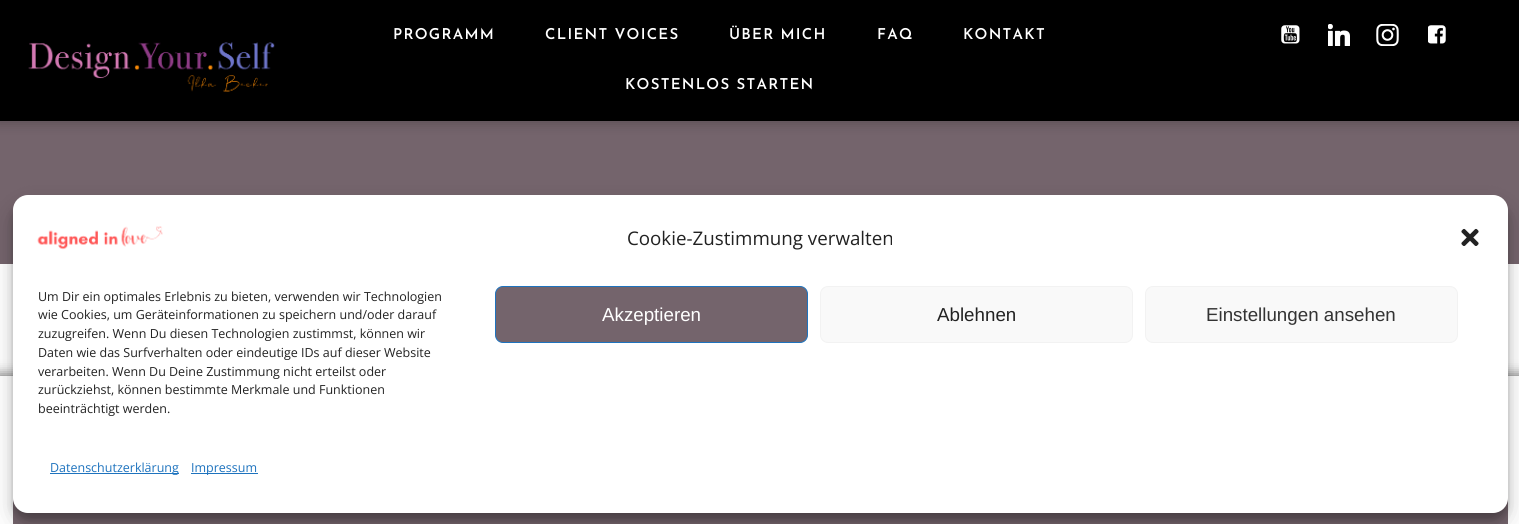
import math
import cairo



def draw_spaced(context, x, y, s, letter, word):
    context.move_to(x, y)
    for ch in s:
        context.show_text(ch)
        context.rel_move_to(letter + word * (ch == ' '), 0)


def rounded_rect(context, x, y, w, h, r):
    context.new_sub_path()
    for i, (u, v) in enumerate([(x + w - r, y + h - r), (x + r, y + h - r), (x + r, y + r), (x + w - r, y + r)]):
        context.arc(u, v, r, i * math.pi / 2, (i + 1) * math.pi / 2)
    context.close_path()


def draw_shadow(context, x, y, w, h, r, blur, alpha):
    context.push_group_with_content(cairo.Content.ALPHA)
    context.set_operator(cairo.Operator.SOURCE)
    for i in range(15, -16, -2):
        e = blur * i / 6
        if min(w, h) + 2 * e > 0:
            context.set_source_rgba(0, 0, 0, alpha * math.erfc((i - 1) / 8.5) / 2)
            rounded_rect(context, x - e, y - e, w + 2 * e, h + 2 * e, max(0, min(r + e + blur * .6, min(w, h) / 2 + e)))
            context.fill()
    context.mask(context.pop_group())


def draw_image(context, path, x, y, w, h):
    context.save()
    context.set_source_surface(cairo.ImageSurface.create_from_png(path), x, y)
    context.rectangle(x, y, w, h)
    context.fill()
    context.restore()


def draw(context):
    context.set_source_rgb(1, 1, 1)
    context.paint()
    context.set_source_rgb(116 / 255, 100 / 255, 108 / 255)
    context.rectangle(0, 121, 1519, 143)
    context.fill()
    context.set_source_rgb(0, 0, 0)
    draw_shadow(context, -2, -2, 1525, 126, 0, 6, 0.2)
    context.set_source_rgb(0, 0, 0)
    context.rectangle(0, 0, 1519, 121)
    context.fill()
    draw_image(context, "images/1.png", 28, 42, 247, 50)
    draw_image(context, "images/2.png", 1281, 25, 19, 19)
    draw_image(context, "images/3.png", 1328, 24, 22, 22)
    draw_image(context, "images/4.png", 1376, 24, 23, 22)
    draw_image(context, "images/5.png", 1428, 25, 18, 19)
    context.set_source_rgb(0, 0, 0)
    draw_shadow(context, -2, 374, 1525, 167, 0, 6, 0.5)
    context.set_source_rgb(1, 1, 1)
    context.rectangle(0, 376, 1519, 148)
    context.fill()
    context.set_source_rgb(116 / 255, 100 / 255, 108 / 255)
    context.rectangle(13, 498, 1495, 26)
    context.fill()
    context.set_source_rgb(0, 0, 0)
    draw_shadow(context, 13, 203, 1495, 317, 15, 4, 0.23)
    draw_shadow(context, 13, 208, 1495, 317, 15, 12.5, 0.19)
    context.set_source_rgb(1, 1, 1)
    rounded_rect(context, 13, 195, 1495, 318, 15)
    context.fill()
    draw_image(context, "images/6.png", 37, 226, 126, 24)
    draw_image(context, "images/7.png", 1461, 228, 18, 18)
    context.set_source_rgb(116 / 255, 100 / 255, 108 / 255)
    rounded_rect(context, 495.5, 286.5, 312, 56, 7.5)
    context.fill_preserve()
    context.set_source_rgb(30 / 255, 115 / 255, 190 / 255)
    context.set_line_width(1)
    context.stroke()
    context.set_source_rgb(249 / 255, 249 / 255, 249 / 255)
    rounded_rect(context, 820.5, 286.5, 312, 56, 7.5)
    context.fill_preserve()
    context.set_source_rgb(242 / 255, 242 / 255, 242 / 255)
    context.stroke()
    context.set_source_rgb(249 / 255, 249 / 255, 249 / 255)
    rounded_rect(context, 1145.5, 286.5, 312, 56, 7.5)
    context.fill_preserve()
    context.set_source_rgb(242 / 255, 242 / 255, 242 / 255)
    context.stroke()
    context.set_source_rgb(30 / 255, 115 / 255, 190 / 255)
    context.rectangle(50, 473, 129, 1)
    context.fill()
    context.rectangle(191, 473, 67, 1)
    context.fill()
    context.select_font_face("Josefin Sans SemiBold")
    context.set_font_size(15)
    context.set_source_rgb(1, 1, 1)
    draw_spaced(context, 393, 39, "PROGRAMM", 1.25, 0)
    draw_spaced(context, 545, 39, "CLIENT VOICES", 1.25, 0)
    draw_spaced(context, 729, 39, "ÜBER MICH", 1.25, 0)
    draw_spaced(context, 877, 39, "FAQ", 1.25, 0)
    draw_spaced(context, 963, 39, "KONTAKT", 1.25, 0)
    draw_spaced(context, 625, 89, "KOSTENLOS STARTEN", 1.25, 0)
    context.select_font_face("Open Sans")
    context.set_font_size(18.75)
    context.set_source_rgb(34 / 255, 34 / 255, 34 / 255)
    context.move_to(627, 245)
    context.show_text("Cookie-Zustimmung verwalten")
    context.set_font_size(12.5)
    context.move_to(38, 301)
    context.show_text("Um Dir ein optimales Erlebnis zu bieten, verwenden wir Technologien")
    context.move_to(38, 319)
    context.show_text("wie Cookies, um Geräteinformationen zu speichern und/oder darauf")
    context.move_to(38, 338)
    context.show_text("zuzugreifen. Wenn Du diesen Technologien zustimmst, können wir")
    context.move_to(38, 357)
    context.show_text("Daten wie das Surfverhalten oder eindeutige IDs auf dieser Website")
    context.move_to(38, 376)
    context.show_text("verarbeiten. Wenn Du Deine Zustimmung nicht erteilst oder")
    context.move_to(38, 394)
    context.show_text("zurückziehst, können bestimmte Merkmale und Funktionen")
    context.move_to(38, 413)
    context.show_text("beeinträchtigt werden.")
    context.select_font_face("Liberation Sans")
    context.set_font_size(18.75)
    context.set_source_rgb(1, 1, 1)
    context.move_to(602, 321)
    context.show_text("Akzeptieren")
    context.set_source_rgb(34 / 255, 34 / 255, 34 / 255)
    context.move_to(937, 321)
    context.show_text("Ablehnen")
    context.set_source_rgb(51 / 255, 51 / 255, 51 / 255)
    context.move_to(1206, 321)
    context.show_text("Einstellungen ansehen")
    context.select_font_face("Open Sans")
    context.set_font_size(12.5)
    context.set_source_rgb(30 / 255, 115 / 255, 190 / 255)
    context.move_to(50, 472)
    context.show_text("Datenschutzerklärung")
    context.move_to(191, 472)
    context.show_text("Impressum")


surface = cairo.ImageSurface(cairo.Format.RGB24, 1519, 524)
context = cairo.Context(surface)
options = cairo.FontOptions()
options.set_hint_metrics(cairo.HintMetrics.OFF)
options.set_hint_style(cairo.HintStyle.NONE)
context.set_font_options(options)
context.set_miter_limit(4)
draw(context)
surface.write_to_png("out.png")
